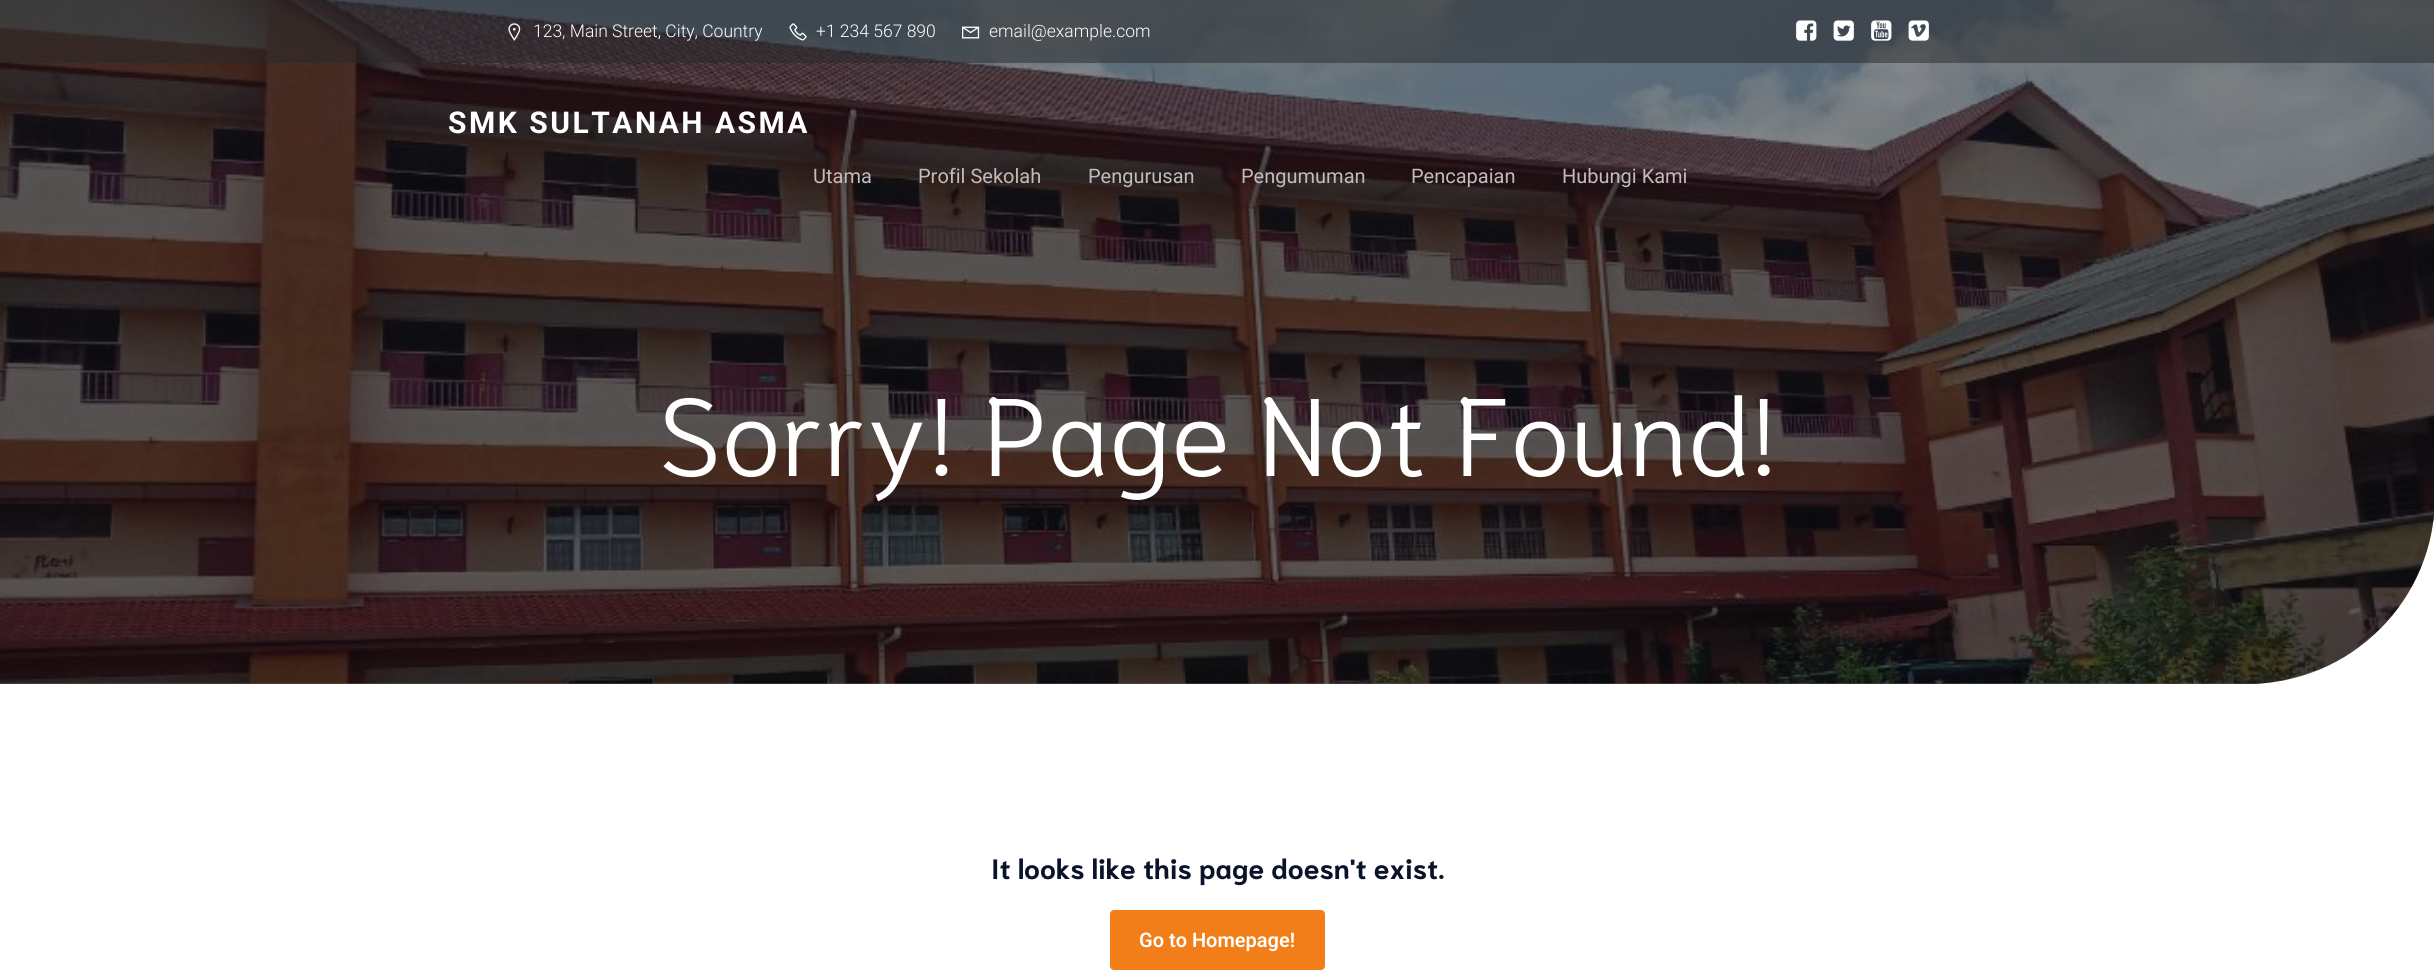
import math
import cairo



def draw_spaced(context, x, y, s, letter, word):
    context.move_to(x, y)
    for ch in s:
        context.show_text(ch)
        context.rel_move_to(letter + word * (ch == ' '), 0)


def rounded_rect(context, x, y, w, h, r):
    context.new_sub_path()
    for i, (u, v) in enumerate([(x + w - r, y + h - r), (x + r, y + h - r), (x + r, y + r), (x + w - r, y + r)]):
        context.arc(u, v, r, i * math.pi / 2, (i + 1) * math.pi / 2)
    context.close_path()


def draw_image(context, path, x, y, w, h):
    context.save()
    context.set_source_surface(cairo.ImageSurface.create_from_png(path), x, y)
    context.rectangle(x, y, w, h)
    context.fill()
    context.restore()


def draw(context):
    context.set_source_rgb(1, 1, 1)
    context.paint()
    draw_image(context, "images/8.png", 0, 0, 2434, 684)
    context.set_source_rgba(17 / 255, 18 / 255, 26 / 255, 0.5)
    context.new_path()
    context.move_to(0, 0)
    context.line_to(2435, 0)
    context.line_to(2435, 496)
    context.curve_to(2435, 600, 2351, 684, 2247, 684)
    context.line_to(0, 684)
    context.close_path()
    context.fill()
    context.set_source_rgba(39 / 255, 40 / 255, 42 / 255, 0.5)
    context.rectangle(0, 0, 2434, 63)
    context.fill()
    draw_image(context, "images/1.png", 508, 23, 13, 18)
    draw_image(context, "images/2.png", 789, 23, 18, 18)
    draw_image(context, "images/3.png", 962, 26, 18, 13)
    draw_image(context, "images/4.png", 1796, 20, 21, 21)
    draw_image(context, "images/5.png", 1833, 20, 21, 21)
    draw_image(context, "images/6.png", 1871, 20, 21, 21)
    draw_image(context, "images/7.png", 1908, 20, 21, 21)
    context.set_source_rgb(241 / 255, 126 / 255, 24 / 255)
    rounded_rect(context, 1110, 910, 215, 60, 4)
    context.fill()
    context.select_font_face("Roboto Light")
    context.set_font_size(17.5)
    context.set_source_rgb(1, 1, 1)
    context.move_to(533, 37)
    context.show_text("123, Main Street, City, Country")
    context.move_to(816, 37)
    context.show_text("+1 234 567 890")
    context.move_to(989, 37)
    context.show_text("email@example.com")
    context.select_font_face("Roboto", cairo.FontSlant.NORMAL, cairo.FontWeight.BOLD)
    context.set_font_size(30)
    draw_spaced(context, 448, 133, "SMK SULTANAH ASMA", 2.5, 0)
    context.select_font_face("Roboto")
    context.set_font_size(20)
    context.set_source_rgb(193 / 255, 188 / 255, 187 / 255)
    context.move_to(813, 183)
    context.show_text("Utama")
    context.move_to(918, 183)
    context.show_text("Profil Sekolah")
    context.move_to(1088, 183)
    context.show_text("Pengurusan")
    context.move_to(1241, 183)
    context.show_text("Pengumuman")
    context.move_to(1411, 183)
    context.show_text("Pencapaian")
    context.move_to(1562, 183)
    context.show_text("Hubungi Kami")
    context.select_font_face("Niramit Light")
    context.set_font_size(110)
    context.set_source_rgb(1, 1, 1)
    context.move_to(658, 476)
    context.show_text("Sorry! Page Not Found!")
    context.select_font_face("Niramit", cairo.FontSlant.NORMAL, cairo.FontWeight.BOLD)
    context.set_font_size(28)
    context.set_source_rgb(11 / 255, 19 / 255, 43 / 255)
    context.move_to(991, 879)
    context.show_text("It looks like this page doesn't exist.")
    context.select_font_face("Roboto SemiBold")
    context.set_font_size(20)
    context.set_source_rgb(1, 1, 1)
    context.move_to(1139, 947)
    context.show_text("Go to Homepage!")


surface = cairo.ImageSurface(cairo.Format.RGB24, 2434, 971)
context = cairo.Context(surface)
options = cairo.FontOptions()
options.set_hint_metrics(cairo.HintMetrics.OFF)
options.set_hint_style(cairo.HintStyle.NONE)
context.set_font_options(options)
context.set_miter_limit(4)
draw(context)
surface.write_to_png("out.png")
